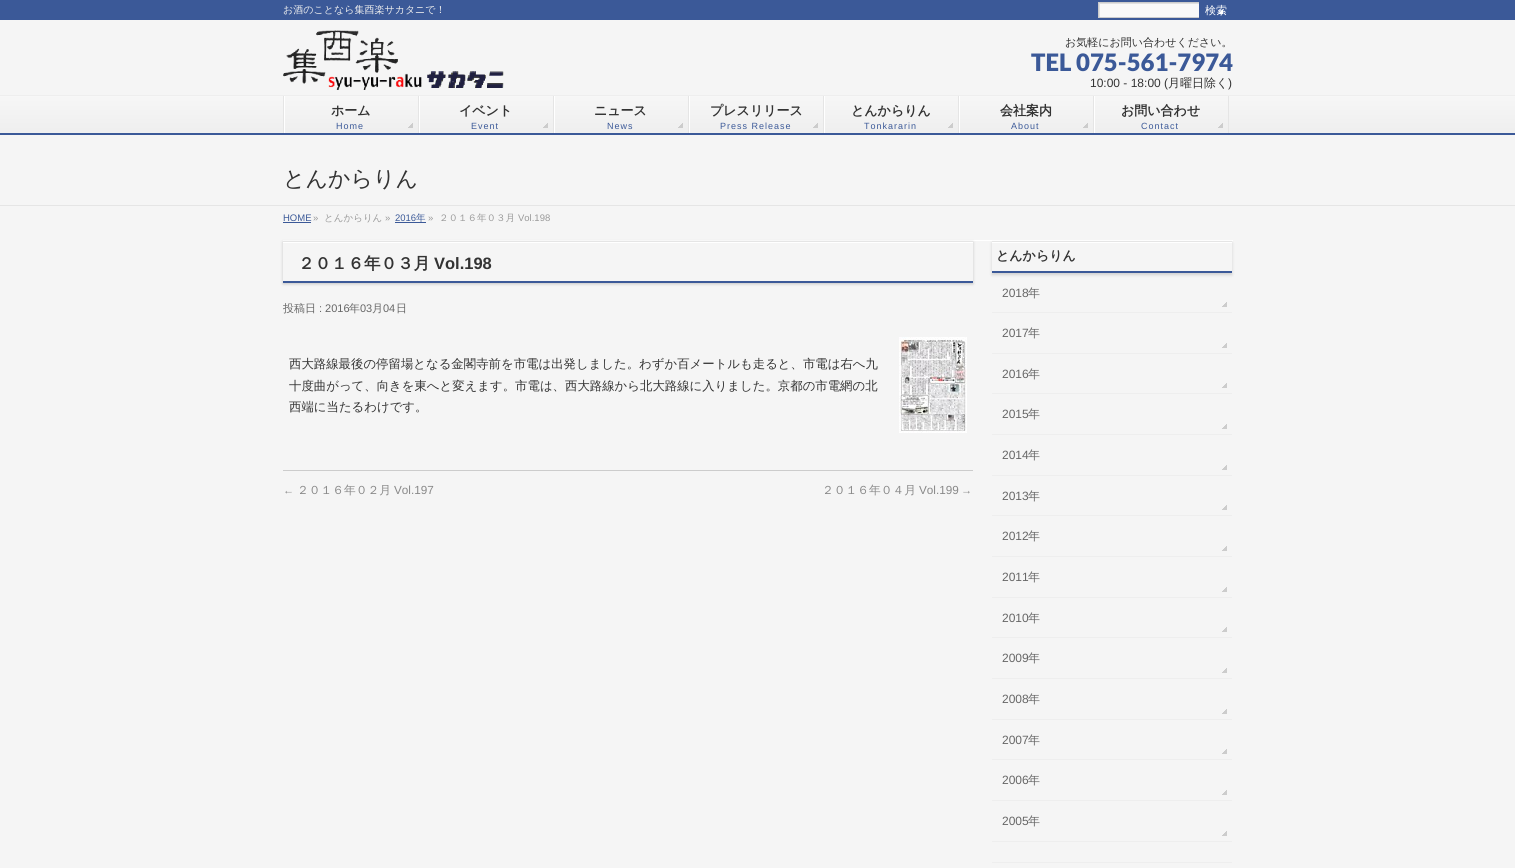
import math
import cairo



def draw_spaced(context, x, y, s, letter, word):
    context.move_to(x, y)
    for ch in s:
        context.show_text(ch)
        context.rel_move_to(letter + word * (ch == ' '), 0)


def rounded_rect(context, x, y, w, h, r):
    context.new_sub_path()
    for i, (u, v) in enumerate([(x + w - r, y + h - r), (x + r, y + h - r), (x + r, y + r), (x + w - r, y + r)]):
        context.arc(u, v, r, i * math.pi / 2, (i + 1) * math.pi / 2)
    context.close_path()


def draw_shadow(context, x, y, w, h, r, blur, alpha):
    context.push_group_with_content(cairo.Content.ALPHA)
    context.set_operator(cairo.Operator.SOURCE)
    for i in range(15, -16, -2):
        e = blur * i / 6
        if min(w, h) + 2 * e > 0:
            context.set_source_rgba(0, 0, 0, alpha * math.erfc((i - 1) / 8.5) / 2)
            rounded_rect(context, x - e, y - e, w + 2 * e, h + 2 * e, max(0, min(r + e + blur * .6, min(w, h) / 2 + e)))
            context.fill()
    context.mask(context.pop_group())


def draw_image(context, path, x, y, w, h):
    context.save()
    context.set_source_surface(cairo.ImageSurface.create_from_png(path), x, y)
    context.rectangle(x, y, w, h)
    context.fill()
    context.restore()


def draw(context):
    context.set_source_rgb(245 / 255, 245 / 255, 245 / 255)
    context.paint()
    context.set_source_rgb(59 / 255, 89 / 255, 152 / 255)
    context.rectangle(0, 0, 1515, 20)
    context.fill()
    context.set_source_rgb(249 / 255, 249 / 255, 249 / 255)
    context.rectangle(1100, 4, 99, 13)
    context.fill()
    context.save()
    context.rectangle(1099, 3, 100, 14)
    context.clip()
    context.set_source_rgb(224 / 255, 224 / 255, 224 / 255)
    context.set_fill_rule(cairo.FillRule.EVEN_ODD)
    context.new_path()
    context.move_to(1000, -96)
    context.line_to(1298, -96)
    context.line_to(1298, 116)
    context.line_to(1000, 116)
    context.close_path()
    context.move_to(1100, 4)
    context.line_to(1200, 4)
    context.line_to(1200, 18)
    context.line_to(1100, 18)
    context.close_path()
    context.fill()
    context.restore()
    context.rectangle(1098.5, 2.5, 101, 15)
    context.set_source_rgb(204 / 255, 204 / 255, 204 / 255)
    context.set_line_width(1)
    context.stroke()
    context.set_source_rgb(59 / 255, 89 / 255, 152 / 255)
    context.rectangle(1199, 2, 1, 16)
    context.fill()
    draw_image(context, "images/1.png", 1219, 10, 4, 4)
    draw_image(context, "images/2.png", 283, 30, 221, 60)
    draw_image(context, "images/3.png", 0, 96, 1515, 37)
    context.set_source_rgb(238 / 255, 238 / 255, 238 / 255)
    context.rectangle(0, 95, 1515, 1)
    context.fill()
    context.set_source_rgb(59 / 255, 89 / 255, 152 / 255)
    context.rectangle(0, 133, 1515, 2)
    context.fill()
    context.set_source_rgb(229 / 255, 229 / 255, 229 / 255)
    context.rectangle(283, 96, 1, 37)
    context.fill()
    context.set_source_rgb(1, 1, 1)
    context.rectangle(284, 96, 1, 37)
    context.fill()
    draw_image(context, "images/4.png", 408, 123, 5, 5)
    context.set_source_rgb(229 / 255, 229 / 255, 229 / 255)
    context.rectangle(418, 96, 1, 37)
    context.fill()
    context.set_source_rgb(1, 1, 1)
    context.rectangle(419, 96, 1, 37)
    context.fill()
    draw_image(context, "images/4.png", 543, 123, 5, 5)
    context.set_source_rgb(229 / 255, 229 / 255, 229 / 255)
    context.rectangle(553, 96, 1, 37)
    context.fill()
    context.set_source_rgb(1, 1, 1)
    context.rectangle(554, 96, 1, 37)
    context.fill()
    draw_image(context, "images/4.png", 678, 123, 5, 5)
    context.set_source_rgb(229 / 255, 229 / 255, 229 / 255)
    context.rectangle(688, 96, 1, 37)
    context.fill()
    context.set_source_rgb(1, 1, 1)
    context.rectangle(689, 96, 1, 37)
    context.fill()
    draw_image(context, "images/4.png", 813, 123, 5, 5)
    context.set_source_rgb(229 / 255, 229 / 255, 229 / 255)
    context.rectangle(823, 96, 1, 37)
    context.fill()
    context.set_source_rgb(1, 1, 1)
    context.rectangle(824, 96, 1, 37)
    context.fill()
    draw_image(context, "images/4.png", 948, 123, 5, 5)
    context.set_source_rgb(229 / 255, 229 / 255, 229 / 255)
    context.rectangle(958, 96, 1, 37)
    context.fill()
    context.set_source_rgb(1, 1, 1)
    context.rectangle(959, 96, 1, 37)
    context.fill()
    draw_image(context, "images/4.png", 1083, 123, 5, 5)
    context.set_source_rgb(229 / 255, 229 / 255, 229 / 255)
    context.rectangle(1093, 96, 1, 37)
    context.fill()
    context.set_source_rgb(1, 1, 1)
    context.rectangle(1094, 96, 1, 37)
    context.fill()
    draw_image(context, "images/4.png", 1218, 123, 5, 5)
    context.set_source_rgb(229 / 255, 229 / 255, 229 / 255)
    context.rectangle(1228, 96, 1, 37)
    context.fill()
    context.rectangle(0, 205, 1515, 1)
    context.fill()
    context.set_source_rgb(1, 1, 1)
    context.rectangle(283, 240, 950, 1)
    context.fill()
    context.set_source_rgb(59 / 255, 89 / 255, 152 / 255)
    context.rectangle(283, 222, 28, 1)
    context.fill()
    context.rectangle(395, 222, 31, 1)
    context.fill()
    context.save()
    context.set_fill_rule(cairo.FillRule.EVEN_ODD)
    context.new_path()
    context.move_to(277, 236)
    context.line_to(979, 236)
    context.line_to(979, 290)
    context.line_to(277, 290)
    context.close_path()
    context.move_to(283, 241)
    context.line_to(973, 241)
    context.line_to(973, 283)
    context.line_to(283, 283)
    context.close_path()
    context.clip()
    context.set_source_rgb(0, 0, 0)
    draw_shadow(context, 283, 242, 690, 42, 0, 1.5, 0.2)
    context.restore()
    context.set_source_rgb(1, 1, 1)
    context.rectangle(283, 242, 690, 1)
    context.fill()
    context.set_source_rgb(229 / 255, 229 / 255, 229 / 255)
    context.rectangle(283, 241, 690, 1)
    context.fill()
    context.set_source_rgb(59 / 255, 89 / 255, 152 / 255)
    context.rectangle(283, 281, 690, 2)
    context.fill()
    draw_image(context, "images/5.png", 899, 337, 68, 96)
    context.set_source_rgb(204 / 255, 204 / 255, 204 / 255)
    context.rectangle(283, 470, 690, 1)
    context.fill()
    context.save()
    context.set_fill_rule(cairo.FillRule.EVEN_ODD)
    context.new_path()
    context.move_to(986, 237)
    context.line_to(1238, 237)
    context.line_to(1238, 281)
    context.line_to(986, 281)
    context.close_path()
    context.move_to(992, 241)
    context.line_to(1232, 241)
    context.line_to(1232, 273)
    context.line_to(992, 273)
    context.close_path()
    context.clip()
    context.set_source_rgb(0, 0, 0)
    draw_shadow(context, 992, 243, 240, 32, 0, 1.5, 0.15)
    context.restore()
    context.set_source_rgb(1, 1, 1)
    context.rectangle(992, 242, 240, 1)
    context.fill()
    context.set_source_rgb(229 / 255, 229 / 255, 229 / 255)
    context.rectangle(992, 241, 240, 1)
    context.fill()
    context.set_source_rgb(59 / 255, 89 / 255, 152 / 255)
    context.rectangle(992, 271, 240, 2)
    context.fill()
    context.set_source_rgb(238 / 255, 238 / 255, 238 / 255)
    context.rectangle(992, 312, 240, 1)
    context.fill()
    draw_image(context, "images/6.png", 1222, 302, 5, 5)
    context.rectangle(992, 353, 240, 1)
    context.fill()
    draw_image(context, "images/6.png", 1222, 343, 5, 5)
    context.rectangle(992, 393, 240, 1)
    context.fill()
    draw_image(context, "images/6.png", 1222, 383, 5, 5)
    context.rectangle(992, 434, 240, 1)
    context.fill()
    draw_image(context, "images/6.png", 1222, 424, 5, 5)
    context.rectangle(992, 475, 240, 1)
    context.fill()
    draw_image(context, "images/6.png", 1222, 465, 5, 5)
    context.rectangle(992, 515, 240, 1)
    context.fill()
    draw_image(context, "images/6.png", 1222, 505, 5, 5)
    context.rectangle(992, 556, 240, 1)
    context.fill()
    draw_image(context, "images/6.png", 1222, 546, 5, 5)
    context.rectangle(992, 597, 240, 1)
    context.fill()
    draw_image(context, "images/6.png", 1222, 587, 5, 5)
    context.rectangle(992, 637, 240, 1)
    context.fill()
    draw_image(context, "images/6.png", 1222, 627, 5, 5)
    context.rectangle(992, 678, 240, 1)
    context.fill()
    draw_image(context, "images/6.png", 1222, 668, 5, 5)
    context.rectangle(992, 719, 240, 1)
    context.fill()
    draw_image(context, "images/6.png", 1222, 709, 5, 5)
    context.rectangle(992, 759, 240, 1)
    context.fill()
    draw_image(context, "images/6.png", 1222, 749, 5, 5)
    context.rectangle(992, 800, 240, 1)
    context.fill()
    draw_image(context, "images/6.png", 1222, 790, 5, 5)
    context.rectangle(992, 841, 240, 1)
    context.fill()
    draw_image(context, "images/6.png", 1222, 831, 5, 5)
    context.rectangle(992, 862, 240, 1)
    context.fill()
    context.select_font_face("WenQuanYi Zen Hei Medium")
    context.set_font_size(10)
    context.move_to(283, 13)
    context.show_text("お酒のことなら集酉楽サカタニで！")
    context.set_font_size(11)
    context.set_source_rgb(1, 1, 1)
    context.move_to(1205, 14)
    context.show_text("検索")
    context.set_source_rgb(51 / 255, 51 / 255, 51 / 255)
    context.move_to(1065, 46)
    context.show_text("お気軽にお問い合わせください。")
    context.select_font_face("Lato Black")
    context.set_font_size(24)
    context.set_source_rgb(59 / 255, 89 / 255, 152 / 255)
    context.move_to(1031, 71)
    context.show_text("TEL 075-561-7974")
    context.select_font_face("Liberation Sans")
    context.set_font_size(12)
    context.set_source_rgb(51 / 255, 51 / 255, 51 / 255)
    context.move_to(1090, 87)
    context.show_text("10:00 - 18:00 (")
    context.select_font_face("WenQuanYi Zen Hei Medium")
    context.move_to(1168, 87)
    context.show_text("月曜日除く")
    context.select_font_face("Liberation Sans")
    context.move_to(1228, 87)
    context.show_text(")")
    context.select_font_face("WenQuanYi Zen Hei", cairo.FontSlant.NORMAL, cairo.FontWeight.BOLD)
    context.set_font_size(13)
    context.move_to(331, 115)
    context.show_text("ホーム")
    context.select_font_face("Liberation Sans")
    context.set_font_size(9)
    context.set_source_rgb(59 / 255, 89 / 255, 152 / 255)
    draw_spaced(context, 336, 129, "Home", 1, 0)
    context.select_font_face("WenQuanYi Zen Hei", cairo.FontSlant.NORMAL, cairo.FontWeight.BOLD)
    context.set_font_size(13)
    context.set_source_rgb(51 / 255, 51 / 255, 51 / 255)
    context.move_to(459, 115)
    context.show_text("イベント")
    context.select_font_face("Liberation Sans")
    context.set_font_size(9)
    context.set_source_rgb(59 / 255, 89 / 255, 152 / 255)
    draw_spaced(context, 471, 129, "Event", 1, 0)
    context.select_font_face("WenQuanYi Zen Hei", cairo.FontSlant.NORMAL, cairo.FontWeight.BOLD)
    context.set_font_size(13)
    context.set_source_rgb(51 / 255, 51 / 255, 51 / 255)
    context.move_to(594, 115)
    context.show_text("ニュース")
    context.select_font_face("Liberation Sans")
    context.set_font_size(9)
    context.set_source_rgb(59 / 255, 89 / 255, 152 / 255)
    draw_spaced(context, 607, 129, "News", 1, 0)
    context.select_font_face("WenQuanYi Zen Hei", cairo.FontSlant.NORMAL, cairo.FontWeight.BOLD)
    context.set_font_size(13)
    context.set_source_rgb(51 / 255, 51 / 255, 51 / 255)
    context.move_to(710, 115)
    context.show_text("プレスリリース")
    context.select_font_face("Liberation Sans")
    context.set_font_size(9)
    context.set_source_rgb(59 / 255, 89 / 255, 152 / 255)
    draw_spaced(context, 720, 129, "Press Release", 1, 0)
    context.select_font_face("WenQuanYi Zen Hei", cairo.FontSlant.NORMAL, cairo.FontWeight.BOLD)
    context.set_font_size(13)
    context.set_source_rgb(51 / 255, 51 / 255, 51 / 255)
    context.move_to(851, 115)
    context.show_text("とんからりん")
    context.select_font_face("Liberation Sans")
    context.set_font_size(9)
    context.set_source_rgb(59 / 255, 89 / 255, 152 / 255)
    draw_spaced(context, 864, 129, "Tonkararin", 1, 0)
    context.select_font_face("WenQuanYi Zen Hei", cairo.FontSlant.NORMAL, cairo.FontWeight.BOLD)
    context.set_font_size(13)
    context.set_source_rgb(51 / 255, 51 / 255, 51 / 255)
    context.move_to(1000, 115)
    context.show_text("会社案内")
    context.select_font_face("Liberation Sans")
    context.set_font_size(9)
    context.set_source_rgb(59 / 255, 89 / 255, 152 / 255)
    draw_spaced(context, 1011, 129, "About", 1, 0)
    context.select_font_face("WenQuanYi Zen Hei", cairo.FontSlant.NORMAL, cairo.FontWeight.BOLD)
    context.set_font_size(13)
    context.set_source_rgb(51 / 255, 51 / 255, 51 / 255)
    context.move_to(1121, 115)
    context.show_text("お問い合わせ")
    context.select_font_face("Liberation Sans")
    context.set_font_size(9)
    context.set_source_rgb(59 / 255, 89 / 255, 152 / 255)
    draw_spaced(context, 1141, 129, "Contact", 1, 0)
    context.select_font_face("WenQuanYi Zen Hei Medium")
    context.set_font_size(22)
    context.set_source_rgb(51 / 255, 51 / 255, 51 / 255)
    context.move_to(283, 186)
    context.show_text("とんからりん")
    context.select_font_face("Liberation Sans")
    context.set_font_size(9.5)
    context.set_source_rgb(59 / 255, 89 / 255, 152 / 255)
    context.move_to(283, 221)
    context.show_text("HOME")
    context.set_source_rgb(153 / 255, 153 / 255, 153 / 255)
    context.move_to(313, 221)
    context.show_text("»")
    context.select_font_face("WenQuanYi Zen Hei Medium")
    context.move_to(324, 221)
    context.show_text("とんからりん")
    context.select_font_face("Liberation Sans")
    context.move_to(385, 221)
    context.show_text("»")
    context.set_source_rgb(59 / 255, 89 / 255, 152 / 255)
    context.move_to(395, 221)
    context.show_text("2016")
    context.select_font_face("WenQuanYi Zen Hei Medium")
    context.move_to(416, 221)
    context.show_text("年")
    context.select_font_face("Liberation Sans")
    context.set_source_rgb(153 / 255, 153 / 255, 153 / 255)
    context.move_to(428, 221)
    context.show_text("»")
    context.select_font_face("WenQuanYi Zen Hei Medium")
    context.move_to(439, 221)
    context.show_text("２０１６年０３月")
    context.select_font_face("Liberation Sans")
    context.move_to(518, 221)
    context.show_text("Vol.198")
    context.select_font_face("WenQuanYi Zen Hei", cairo.FontSlant.NORMAL, cairo.FontWeight.BOLD)
    context.set_font_size(16.5)
    context.set_source_rgb(51 / 255, 51 / 255, 51 / 255)
    context.move_to(298, 269)
    context.show_text("２０１６年０３月")
    context.select_font_face("Liberation Sans", cairo.FontSlant.NORMAL, cairo.FontWeight.BOLD)
    context.move_to(434, 269)
    context.show_text("Vol.198")
    context.select_font_face("WenQuanYi Zen Hei Medium")
    context.set_font_size(11)
    context.set_source_rgb(102 / 255, 102 / 255, 102 / 255)
    context.move_to(283, 312)
    context.show_text("投稿日")
    context.select_font_face("Liberation Sans")
    context.move_to(319, 312)
    context.show_text(": 2016")
    context.select_font_face("WenQuanYi Zen Hei Medium")
    context.move_to(349, 312)
    context.show_text("年")
    context.select_font_face("Liberation Sans")
    context.move_to(360, 312)
    context.show_text("03")
    context.select_font_face("WenQuanYi Zen Hei Medium")
    context.move_to(372, 312)
    context.show_text("月")
    context.select_font_face("Liberation Sans")
    context.move_to(383, 312)
    context.show_text("04")
    context.select_font_face("WenQuanYi Zen Hei Medium")
    context.move_to(396, 312)
    context.show_text("日")
    context.set_font_size(12.4)
    context.set_source_rgb(51 / 255, 51 / 255, 51 / 255)
    context.move_to(289, 368)
    context.show_text("西大路線最後の停留場となる金閣寺前を市電は出発しました。わずか百メートルも走ると、市電は右へ九")
    context.move_to(289, 390)
    context.show_text("十度曲がって、向きを東へと変えます。市電は、西大路線から北大路線に入りました。京都の市電網の北")
    context.move_to(289, 411)
    context.show_text("西端に当たるわけです。")
    context.select_font_face("Liberation Sans")
    context.set_font_size(11)
    context.set_source_rgb(136 / 255, 136 / 255, 136 / 255)
    context.move_to(283, 494)
    context.show_text("←")
    context.select_font_face("WenQuanYi Zen Hei Medium")
    context.set_font_size(11.75)
    context.move_to(297, 494)
    context.show_text("２０１６年０２月")
    context.select_font_face("Liberation Sans")
    context.move_to(394, 494)
    context.show_text("Vol.197")
    context.select_font_face("WenQuanYi Zen Hei Medium")
    context.move_to(822, 494)
    context.show_text("２０１６年０４月")
    context.select_font_face("Liberation Sans")
    context.move_to(919, 494)
    context.show_text("Vol.199")
    context.set_font_size(11)
    context.move_to(961, 494)
    context.show_text("→")
    context.select_font_face("WenQuanYi Zen Hei", cairo.FontSlant.NORMAL, cairo.FontWeight.BOLD)
    context.set_font_size(13)
    context.set_source_rgb(51 / 255, 51 / 255, 51 / 255)
    context.move_to(996, 260)
    context.show_text("とんからりん")
    context.select_font_face("Liberation Sans")
    context.set_font_size(12)
    context.set_source_rgb(102 / 255, 102 / 255, 102 / 255)
    context.move_to(1002, 297)
    context.show_text("2018")
    context.select_font_face("WenQuanYi Zen Hei Medium")
    context.move_to(1028, 297)
    context.show_text("年")
    context.select_font_face("Liberation Sans")
    context.move_to(1002, 337)
    context.show_text("2017")
    context.select_font_face("WenQuanYi Zen Hei Medium")
    context.move_to(1028, 337)
    context.show_text("年")
    context.select_font_face("Liberation Sans")
    context.move_to(1002, 378)
    context.show_text("2016")
    context.select_font_face("WenQuanYi Zen Hei Medium")
    context.move_to(1028, 378)
    context.show_text("年")
    context.select_font_face("Liberation Sans")
    context.move_to(1002, 418)
    context.show_text("2015")
    context.select_font_face("WenQuanYi Zen Hei Medium")
    context.move_to(1028, 418)
    context.show_text("年")
    context.select_font_face("Liberation Sans")
    context.move_to(1002, 459)
    context.show_text("2014")
    context.select_font_face("WenQuanYi Zen Hei Medium")
    context.move_to(1028, 459)
    context.show_text("年")
    context.select_font_face("Liberation Sans")
    context.move_to(1002, 500)
    context.show_text("2013")
    context.select_font_face("WenQuanYi Zen Hei Medium")
    context.move_to(1028, 500)
    context.show_text("年")
    context.select_font_face("Liberation Sans")
    context.move_to(1002, 540)
    context.show_text("2012")
    context.select_font_face("WenQuanYi Zen Hei Medium")
    context.move_to(1028, 540)
    context.show_text("年")
    context.select_font_face("Liberation Sans")
    context.move_to(1002, 581)
    context.show_text("2011")
    context.select_font_face("WenQuanYi Zen Hei Medium")
    context.move_to(1028, 581)
    context.show_text("年")
    context.select_font_face("Liberation Sans")
    context.move_to(1002, 622)
    context.show_text("2010")
    context.select_font_face("WenQuanYi Zen Hei Medium")
    context.move_to(1028, 622)
    context.show_text("年")
    context.select_font_face("Liberation Sans")
    context.move_to(1002, 662)
    context.show_text("2009")
    context.select_font_face("WenQuanYi Zen Hei Medium")
    context.move_to(1028, 662)
    context.show_text("年")
    context.select_font_face("Liberation Sans")
    context.move_to(1002, 703)
    context.show_text("2008")
    context.select_font_face("WenQuanYi Zen Hei Medium")
    context.move_to(1028, 703)
    context.show_text("年")
    context.select_font_face("Liberation Sans")
    context.move_to(1002, 744)
    context.show_text("2007")
    context.select_font_face("WenQuanYi Zen Hei Medium")
    context.move_to(1028, 744)
    context.show_text("年")
    context.select_font_face("Liberation Sans")
    context.move_to(1002, 784)
    context.show_text("2006")
    context.select_font_face("WenQuanYi Zen Hei Medium")
    context.move_to(1028, 784)
    context.show_text("年")
    context.select_font_face("Liberation Sans")
    context.move_to(1002, 825)
    context.show_text("2005")
    context.select_font_face("WenQuanYi Zen Hei Medium")
    context.move_to(1028, 825)
    context.show_text("年")


surface = cairo.ImageSurface(cairo.Format.RGB24, 1515, 868)
context = cairo.Context(surface)
options = cairo.FontOptions()
options.set_hint_metrics(cairo.HintMetrics.OFF)
options.set_hint_style(cairo.HintStyle.NONE)
context.set_font_options(options)
context.set_miter_limit(4)
draw(context)
surface.write_to_png("out.png")
